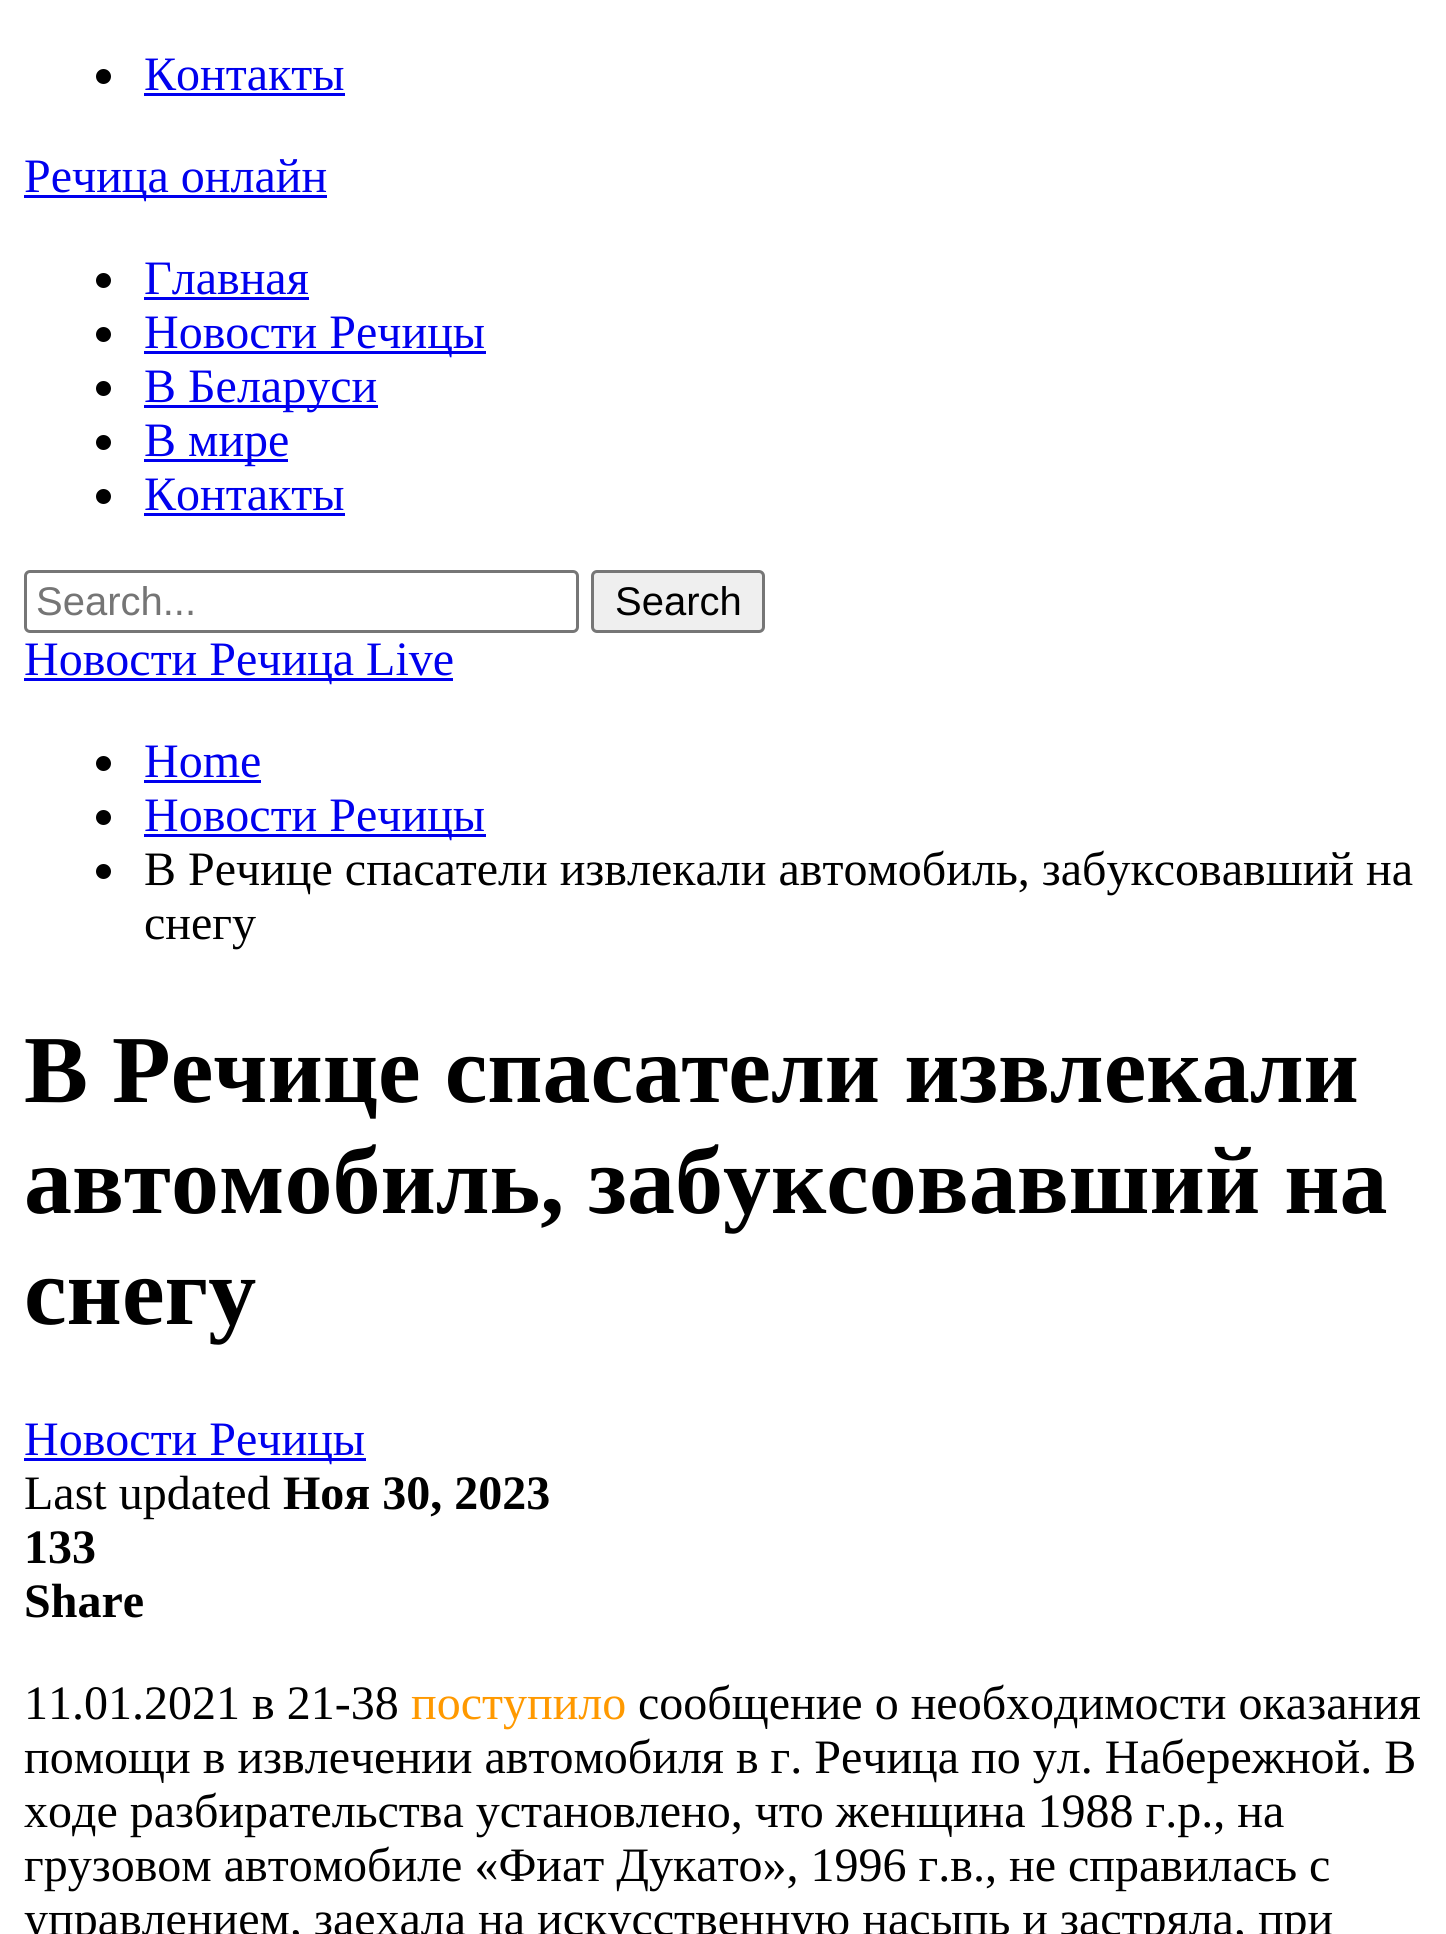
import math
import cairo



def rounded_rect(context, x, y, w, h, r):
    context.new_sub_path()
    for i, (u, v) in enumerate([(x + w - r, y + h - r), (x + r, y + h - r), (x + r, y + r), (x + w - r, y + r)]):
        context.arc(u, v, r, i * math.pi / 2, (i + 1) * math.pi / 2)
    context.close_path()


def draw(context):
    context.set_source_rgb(1, 1, 1)
    context.paint()
    context.set_source_rgb(0, 0, 0)
    context.arc(103.5, 76.5, 7.5, 0, 2 * math.pi)
    context.fill()
    context.set_source_rgb(0, 0, 238 / 255)
    context.rectangle(144, 93, 201, 3)
    context.fill()
    context.rectangle(24, 195, 303, 3)
    context.fill()
    context.set_source_rgb(0, 0, 0)
    context.arc(103.5, 280.5, 7.5, 0, 2 * math.pi)
    context.fill()
    context.set_source_rgb(0, 0, 238 / 255)
    context.rectangle(144, 297, 165, 3)
    context.fill()
    context.set_source_rgb(0, 0, 0)
    context.arc(103.5, 334.5, 7.5, 0, 2 * math.pi)
    context.fill()
    context.set_source_rgb(0, 0, 238 / 255)
    context.rectangle(144, 351, 342, 3)
    context.fill()
    context.set_source_rgb(0, 0, 0)
    context.arc(103.5, 388.5, 7.5, 0, 2 * math.pi)
    context.fill()
    context.set_source_rgb(0, 0, 238 / 255)
    context.rectangle(144, 405, 234, 3)
    context.fill()
    context.set_source_rgb(0, 0, 0)
    context.arc(103.5, 442.5, 7.5, 0, 2 * math.pi)
    context.fill()
    context.set_source_rgb(0, 0, 238 / 255)
    context.rectangle(144, 459, 144, 3)
    context.fill()
    context.set_source_rgb(0, 0, 0)
    context.arc(103.5, 496.5, 7.5, 0, 2 * math.pi)
    context.fill()
    context.set_source_rgb(0, 0, 238 / 255)
    context.rectangle(144, 513, 201, 3)
    context.fill()
    rounded_rect(context, 25.5, 571.5, 552, 60, 4.5)
    context.set_source_rgb(118 / 255, 118 / 255, 118 / 255)
    context.set_line_width(3)
    context.stroke()
    context.set_source_rgb(239 / 255, 239 / 255, 239 / 255)
    rounded_rect(context, 592.5, 571.5, 171, 60, 4.5)
    context.fill_preserve()
    context.set_source_rgb(118 / 255, 118 / 255, 118 / 255)
    context.stroke()
    context.set_source_rgb(0, 0, 238 / 255)
    context.rectangle(24, 678, 429, 3)
    context.fill()
    context.set_source_rgb(0, 0, 0)
    context.arc(103.5, 763.5, 7.5, 0, 2 * math.pi)
    context.fill()
    context.set_source_rgb(0, 0, 238 / 255)
    context.rectangle(144, 780, 117, 3)
    context.fill()
    context.set_source_rgb(0, 0, 0)
    context.arc(103.5, 817.5, 7.5, 0, 2 * math.pi)
    context.fill()
    context.set_source_rgb(0, 0, 238 / 255)
    context.rectangle(144, 834, 342, 3)
    context.fill()
    context.set_source_rgb(0, 0, 0)
    context.arc(103.5, 871.5, 7.5, 0, 2 * math.pi)
    context.fill()
    context.set_source_rgb(0, 0, 238 / 255)
    context.rectangle(24, 1458, 342, 3)
    context.fill()
    context.select_font_face("Liberation Serif")
    context.set_font_size(48)
    context.move_to(144, 90)
    context.show_text("Контакты")
    context.move_to(24, 192)
    context.show_text("Речица онлайн")
    context.move_to(144, 294)
    context.show_text("Главная")
    context.move_to(144, 348)
    context.show_text("Новости Речицы")
    context.move_to(144, 402)
    context.show_text("В Беларуси")
    context.move_to(144, 456)
    context.show_text("В мире")
    context.move_to(144, 510)
    context.show_text("Контакты")
    context.select_font_face("Liberation Sans")
    context.set_font_size(40)
    context.set_source_rgb(117 / 255, 117 / 255, 117 / 255)
    context.move_to(36, 615)
    context.show_text("Search...")
    context.set_source_rgb(0, 0, 0)
    context.move_to(615, 615)
    context.show_text("Search")
    context.select_font_face("Liberation Serif")
    context.set_font_size(48)
    context.set_source_rgb(0, 0, 238 / 255)
    context.move_to(24, 675)
    context.show_text("Новости Речица Live")
    context.move_to(144, 777)
    context.show_text("Home")
    context.move_to(144, 831)
    context.show_text("Новости Речицы")
    context.set_source_rgb(0, 0, 0)
    context.move_to(144, 885)
    context.show_text("В Речице спасатели извлекали автомобиль, забуксовавший на")
    context.move_to(144, 939)
    context.show_text("снегу")
    context.select_font_face("Liberation Serif", cairo.FontSlant.NORMAL, cairo.FontWeight.BOLD)
    context.set_font_size(96)
    context.move_to(24, 1102)
    context.show_text("В Речице спасатели извлекали")
    context.move_to(24, 1213)
    context.show_text("автомобиль, забуксовавший на")
    context.move_to(24, 1324)
    context.show_text("снегу")
    context.select_font_face("Liberation Serif")
    context.set_font_size(48)
    context.set_source_rgb(0, 0, 238 / 255)
    context.move_to(24, 1455)
    context.show_text("Новости Речицы")
    context.set_source_rgb(0, 0, 0)
    context.move_to(24, 1509)
    context.show_text("Last updated")
    context.select_font_face("Liberation Serif", cairo.FontSlant.NORMAL, cairo.FontWeight.BOLD)
    context.move_to(283, 1509)
    context.show_text("Ноя 30, 2023")
    context.move_to(24, 1563)
    context.show_text("133")
    context.move_to(24, 1617)
    context.show_text("Share")
    context.select_font_face("Liberation Serif")
    context.move_to(24, 1719)
    context.show_text("11.01.2021 в 21-38")
    context.set_source_rgb(1, 153 / 255, 0)
    context.move_to(411, 1719)
    context.show_text("поступило")
    context.set_source_rgb(0, 0, 0)
    context.move_to(638, 1719)
    context.show_text("сообщение о необходимости оказания")
    context.move_to(24, 1773)
    context.show_text("помощи в извлечении автомобиля в г. Речица по ул. Набережной. В")
    context.move_to(24, 1827)
    context.show_text("ходе разбирательства установлено, что женщина 1988 г.р., на")
    context.move_to(24, 1881)
    context.show_text("грузовом автомобиле «Фиат Дукато», 1996 г.в., не справилась с")
    context.move_to(24, 1935)
    context.show_text("управлением, заехала на искусственную насыпь и застряла, при")


surface = cairo.ImageSurface(cairo.Format.RGB24, 1446, 1934)
context = cairo.Context(surface)
options = cairo.FontOptions()
options.set_hint_metrics(cairo.HintMetrics.OFF)
options.set_hint_style(cairo.HintStyle.NONE)
context.set_font_options(options)
context.set_miter_limit(4)
draw(context)
surface.write_to_png("out.png")
